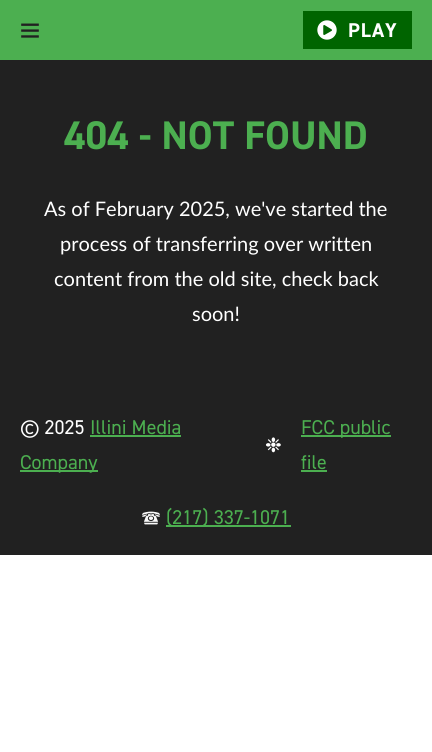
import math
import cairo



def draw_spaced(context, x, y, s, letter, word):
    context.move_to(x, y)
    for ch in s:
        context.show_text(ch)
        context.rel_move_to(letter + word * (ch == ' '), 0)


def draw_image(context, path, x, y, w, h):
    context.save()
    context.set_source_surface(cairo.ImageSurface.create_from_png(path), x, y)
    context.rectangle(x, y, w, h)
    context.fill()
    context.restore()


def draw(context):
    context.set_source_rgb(1, 1, 1)
    context.paint()
    context.set_source_rgb(76 / 255, 175 / 255, 80 / 255)
    context.rectangle(0, 0, 432, 60)
    context.fill()
    draw_image(context, "images/1.png", 21, 23, 18, 15)
    context.set_source_rgb(0, 100 / 255, 0)
    context.rectangle(303, 11, 109, 38)
    context.fill()
    draw_image(context, "images/2.png", 317, 20, 20, 20)
    context.set_source_rgb(33 / 255, 33 / 255, 33 / 255)
    context.rectangle(0, 60, 432, 495)
    context.fill()
    context.set_source_rgb(76 / 255, 175 / 255, 80 / 255)
    context.rectangle(90, 435, 91, 2)
    context.fill()
    context.rectangle(20, 470, 78, 2)
    context.fill()
    context.rectangle(301, 435, 90, 2)
    context.fill()
    context.rectangle(301, 470, 26, 2)
    context.fill()
    draw_image(context, "images/3.png", 142, 511, 18, 14)
    context.rectangle(166, 525, 125, 2)
    context.fill()
    context.select_font_face("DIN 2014", cairo.FontSlant.NORMAL, cairo.FontWeight.BOLD)
    context.set_font_size(20)
    context.set_source_rgb(1, 1, 1)
    draw_spaced(context, 348, 37, "PLAY", 1, 0)
    context.set_font_size(40)
    context.set_source_rgb(76 / 255, 175 / 255, 80 / 255)
    context.move_to(64, 149)
    context.show_text("404 - NOT FOUND")
    context.select_font_face("Lato")
    context.set_font_size(20)
    context.set_source_rgb(1, 1, 1)
    context.move_to(44, 216)
    context.show_text("As of February 2025, we've started the")
    context.move_to(60, 251)
    context.show_text("process of transferring over written")
    context.move_to(54, 286)
    context.show_text("content from the old site, check back")
    context.move_to(192, 321)
    context.show_text("soon!")
    context.select_font_face("DIN 2014")
    context.move_to(20, 434)
    context.show_text("© 2025")
    context.set_source_rgb(76 / 255, 175 / 255, 80 / 255)
    context.move_to(90, 434)
    context.show_text("Illini Media")
    context.move_to(20, 469)
    context.show_text("Company")
    context.select_font_face("DejaVu Sans")
    context.set_source_rgb(1, 1, 1)
    context.move_to(265, 452)
    context.show_text("❉")
    context.select_font_face("DIN 2014")
    context.set_source_rgb(76 / 255, 175 / 255, 80 / 255)
    context.move_to(301, 434)
    context.show_text("FCC public")
    context.move_to(301, 469)
    context.show_text("file")
    context.move_to(166, 524)
    context.show_text("(217) 337-1071")


surface = cairo.ImageSurface(cairo.Format.RGB24, 432, 752)
context = cairo.Context(surface)
options = cairo.FontOptions()
options.set_hint_metrics(cairo.HintMetrics.OFF)
options.set_hint_style(cairo.HintStyle.NONE)
context.set_font_options(options)
context.set_miter_limit(4)
draw(context)
surface.write_to_png("out.png")
